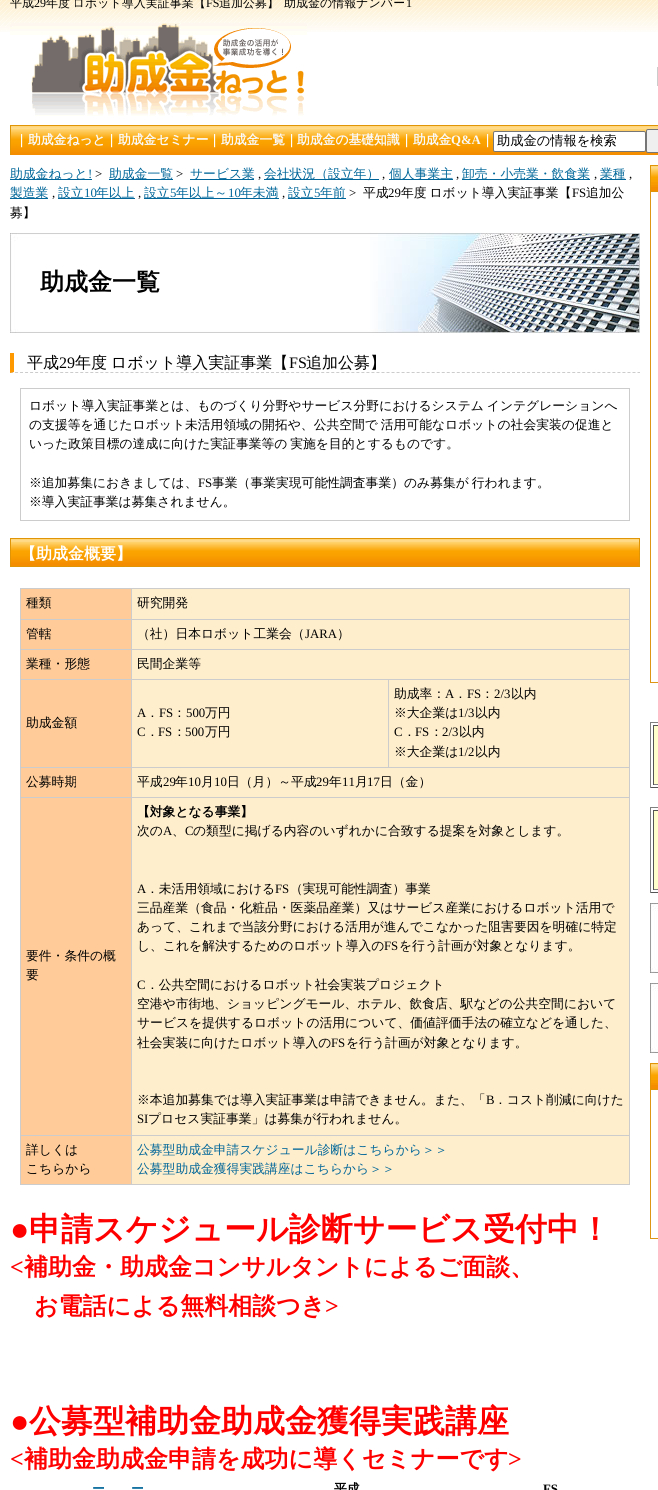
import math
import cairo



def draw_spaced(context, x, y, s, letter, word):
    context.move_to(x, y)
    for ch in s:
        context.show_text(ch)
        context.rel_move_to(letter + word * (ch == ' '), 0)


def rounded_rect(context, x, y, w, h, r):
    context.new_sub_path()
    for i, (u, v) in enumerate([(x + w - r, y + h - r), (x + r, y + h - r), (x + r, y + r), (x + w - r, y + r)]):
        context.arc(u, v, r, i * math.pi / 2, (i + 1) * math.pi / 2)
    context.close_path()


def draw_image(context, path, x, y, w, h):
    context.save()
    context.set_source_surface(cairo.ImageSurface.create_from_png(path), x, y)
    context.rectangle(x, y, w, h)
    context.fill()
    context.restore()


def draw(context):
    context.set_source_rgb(1, 1, 1)
    context.paint()
    draw_image(context, "images/1.png", 0, 0, 658, 32)
    draw_image(context, "images/2.png", 10, 23, 297, 93)
    context.set_source_rgb(204 / 255, 204 / 255, 204 / 255)
    context.rectangle(657, 67, 1, 19)
    context.fill()
    draw_image(context, "images/3.png", 10, 125, 648, 30)
    context.set_source_rgb(1, 1, 1)
    rounded_rect(context, 493.5, 131.5, 152, 20, 1.5)
    context.fill_preserve()
    context.set_source_rgb(118 / 255, 118 / 255, 118 / 255)
    context.set_line_width(1)
    context.stroke()
    context.set_source_rgb(239 / 255, 239 / 255, 239 / 255)
    rounded_rect(context, 646.5, 129.5, 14, 23, 1.5)
    context.fill_preserve()
    context.set_source_rgb(118 / 255, 118 / 255, 118 / 255)
    context.stroke()
    context.set_source_rgb(0, 102 / 255, 153 / 255)
    context.rectangle(10, 179, 82, 1)
    context.fill()
    context.rectangle(109, 179, 64, 1)
    context.fill()
    context.rectangle(190, 179, 64, 1)
    context.fill()
    context.rectangle(264, 179, 115, 1)
    context.fill()
    context.rectangle(389, 179, 64, 1)
    context.fill()
    context.rectangle(462, 179, 128, 1)
    context.fill()
    context.rectangle(600, 179, 26, 1)
    context.fill()
    context.rectangle(10, 198, 38, 1)
    context.fill()
    context.rectangle(58, 198, 77, 1)
    context.fill()
    context.rectangle(144, 198, 135, 1)
    context.fill()
    context.rectangle(288, 198, 58, 1)
    context.fill()
    draw_image(context, "images/4.png", 10, 233, 630, 100)
    context.new_path()
    context.move_to(10, 372.5)
    context.line_to(640, 372.5)
    context.set_source_rgb(204 / 255, 204 / 255, 204 / 255)
    context.set_dash([3, 2.02])
    context.stroke()
    context.set_source_rgb(1, 153 / 255, 0)
    context.new_path()
    context.move_to(10, 373)
    context.line_to(10, 353)
    context.line_to(14, 353)
    context.line_to(14, 372)
    context.close_path()
    context.fill()
    context.rectangle(20.5, 388.5, 609, 132)
    context.set_source_rgb(204 / 255, 204 / 255, 204 / 255)
    context.set_dash([])
    context.stroke()
    draw_image(context, "images/5.png", 10, 538, 630, 29)
    context.set_source_rgb(1, 204 / 255, 153 / 255)
    context.rectangle(21, 589, 110, 30)
    context.fill()
    context.set_source_rgb(204 / 255, 204 / 255, 204 / 255)
    context.rectangle(131, 588, 499, 1)
    context.fill()
    context.rectangle(131, 619, 499, 1)
    context.fill()
    context.rectangle(131, 649, 499, 1)
    context.fill()
    context.rectangle(388, 679, 242, 1)
    context.fill()
    context.rectangle(131, 767, 499, 1)
    context.fill()
    context.rectangle(388, 679, 1, 89)
    context.fill()
    context.rectangle(131, 679, 258, 1)
    context.fill()
    context.rectangle(131, 797, 499, 1)
    context.fill()
    context.rectangle(131, 1135, 499, 1)
    context.fill()
    context.rectangle(629, 1135, 1, 50)
    context.fill()
    context.rectangle(131, 1184, 499, 1)
    context.fill()
    context.rectangle(131, 1135, 1, 50)
    context.fill()
    context.rectangle(20, 1135, 112, 1)
    context.fill()
    context.rectangle(131, 797, 1, 339)
    context.fill()
    context.rectangle(20, 797, 112, 1)
    context.fill()
    context.rectangle(131, 767, 1, 31)
    context.fill()
    context.rectangle(20, 767, 112, 1)
    context.fill()
    context.rectangle(131, 679, 1, 89)
    context.fill()
    context.rectangle(20, 679, 112, 1)
    context.fill()
    context.rectangle(131, 649, 1, 31)
    context.fill()
    context.rectangle(20, 649, 112, 1)
    context.fill()
    context.rectangle(131, 619, 1, 31)
    context.fill()
    context.rectangle(20, 619, 112, 1)
    context.fill()
    context.rectangle(131, 588, 1, 32)
    context.fill()
    context.rectangle(20, 588, 112, 1)
    context.fill()
    context.rectangle(20, 1184, 112, 1)
    context.fill()
    context.rectangle(20, 1135, 1, 50)
    context.fill()
    context.rectangle(20, 797, 1, 339)
    context.fill()
    context.rectangle(20, 767, 1, 31)
    context.fill()
    context.rectangle(20, 679, 1, 89)
    context.fill()
    context.rectangle(20, 649, 1, 31)
    context.fill()
    context.rectangle(20, 619, 1, 31)
    context.fill()
    context.rectangle(20, 588, 1, 32)
    context.fill()
    context.set_source_rgb(1, 238 / 255, 204 / 255)
    context.rectangle(132, 589, 497, 30)
    context.fill()
    context.set_source_rgb(204 / 255, 204 / 255, 204 / 255)
    context.rectangle(629, 797, 1, 339)
    context.fill()
    context.rectangle(629, 767, 1, 31)
    context.fill()
    context.rectangle(629, 679, 1, 89)
    context.fill()
    context.rectangle(629, 649, 1, 31)
    context.fill()
    context.rectangle(629, 619, 1, 31)
    context.fill()
    context.rectangle(629, 588, 1, 32)
    context.fill()
    context.set_source_rgb(1, 204 / 255, 153 / 255)
    context.rectangle(21, 620, 110, 29)
    context.fill()
    context.set_source_rgb(1, 238 / 255, 204 / 255)
    context.rectangle(132, 620, 497, 29)
    context.fill()
    context.set_source_rgb(1, 204 / 255, 153 / 255)
    context.rectangle(21, 650, 110, 29)
    context.fill()
    context.set_source_rgb(1, 238 / 255, 204 / 255)
    context.rectangle(132, 650, 497, 29)
    context.fill()
    context.set_source_rgb(1, 204 / 255, 153 / 255)
    context.rectangle(21, 680, 110, 87)
    context.fill()
    context.set_source_rgb(1, 238 / 255, 204 / 255)
    context.rectangle(132, 680, 256, 87)
    context.fill()
    context.rectangle(389, 680, 240, 87)
    context.fill()
    context.set_source_rgb(1, 204 / 255, 153 / 255)
    context.rectangle(21, 768, 110, 29)
    context.fill()
    context.set_source_rgb(1, 238 / 255, 204 / 255)
    context.rectangle(132, 768, 497, 29)
    context.fill()
    context.set_source_rgb(1, 204 / 255, 153 / 255)
    context.rectangle(21, 798, 110, 337)
    context.fill()
    context.set_source_rgb(1, 238 / 255, 204 / 255)
    context.rectangle(132, 798, 497, 337)
    context.fill()
    context.set_source_rgb(1, 204 / 255, 153 / 255)
    context.rectangle(21, 1136, 110, 48)
    context.fill()
    context.set_source_rgb(1, 238 / 255, 204 / 255)
    context.rectangle(132, 1136, 497, 48)
    context.fill()
    draw_image(context, "images/6.png", 650, 165, 8, 27)
    context.set_source_rgb(222 / 255, 149 / 255, 20 / 255)
    context.rectangle(650, 682, 8, 1)
    context.fill()
    context.rectangle(650, 192, 1, 491)
    context.fill()
    context.set_source_rgb(128 / 255, 128 / 255, 128 / 255)
    context.rectangle(650, 722, 8, 1)
    context.fill()
    context.set_source_rgb(85 / 255, 85 / 255, 85 / 255)
    context.rectangle(650, 787, 8, 1)
    context.fill()
    context.set_source_rgb(128 / 255, 128 / 255, 128 / 255)
    context.rectangle(650, 722, 1, 66)
    context.fill()
    context.set_source_rgb(1, 1, 204 / 255)
    context.rectangle(654, 725, 4, 60)
    context.fill()
    context.set_source_rgb(85 / 255, 85 / 255, 85 / 255)
    context.rectangle(653, 725, 5, 1)
    context.fill()
    context.set_source_rgb(128 / 255, 128 / 255, 128 / 255)
    context.rectangle(653, 784, 5, 1)
    context.fill()
    context.set_source_rgb(85 / 255, 85 / 255, 85 / 255)
    context.rectangle(653, 725, 1, 60)
    context.fill()
    context.set_source_rgb(128 / 255, 128 / 255, 128 / 255)
    context.rectangle(650, 807, 8, 1)
    context.fill()
    context.set_source_rgb(85 / 255, 85 / 255, 85 / 255)
    context.rectangle(650, 892, 8, 1)
    context.fill()
    context.set_source_rgb(128 / 255, 128 / 255, 128 / 255)
    context.rectangle(650, 807, 1, 86)
    context.fill()
    context.set_source_rgb(1, 1, 204 / 255)
    context.rectangle(654, 810, 4, 80)
    context.fill()
    context.set_source_rgb(85 / 255, 85 / 255, 85 / 255)
    context.rectangle(653, 810, 5, 1)
    context.fill()
    context.set_source_rgb(128 / 255, 128 / 255, 128 / 255)
    context.rectangle(653, 889, 5, 1)
    context.fill()
    context.set_source_rgb(85 / 255, 85 / 255, 85 / 255)
    context.rectangle(653, 810, 1, 80)
    context.fill()
    draw_image(context, "images/7.png", 650, 903, 8, 70)
    draw_image(context, "images/7.png", 650, 983, 8, 70)
    draw_image(context, "images/6.png", 650, 1063, 8, 27)
    context.set_source_rgb(222 / 255, 149 / 255, 20 / 255)
    context.rectangle(650, 1238, 8, 1)
    context.fill()
    context.rectangle(650, 1090, 1, 149)
    context.fill()
    context.select_font_face("WenQuanYi Zen Hei Medium")
    context.set_font_size(12)
    context.set_source_rgb(0, 0, 0)
    context.move_to(10, 7)
    context.show_text("平成")
    context.select_font_face("Liberation Serif")
    context.move_to(34, 7)
    context.show_text("29")
    context.select_font_face("WenQuanYi Zen Hei Medium")
    draw_spaced(context, 46, 7, "年度 ロボット導入実証事業【", 0, -1)
    context.select_font_face("Liberation Serif")
    context.move_to(206, 7)
    context.show_text("FS")
    context.select_font_face("WenQuanYi Zen Hei Medium")
    context.move_to(219, 7)
    context.show_text("追加公募】")
    context.move_to(284, 7)
    context.show_text("助成金の情報ナンバー")
    context.select_font_face("Liberation Serif")
    context.move_to(406, 7)
    context.show_text("1")
    context.select_font_face("WenQuanYi Zen Hei", cairo.FontSlant.NORMAL, cairo.FontWeight.BOLD)
    context.set_font_size(12.8)
    context.set_source_rgb(1, 1, 1)
    context.move_to(15, 144)
    context.show_text("｜")
    context.set_source_rgb(249 / 255, 249 / 255, 249 / 255)
    context.move_to(28, 144)
    context.show_text("助成金ねっと")
    context.set_source_rgb(1, 1, 1)
    context.move_to(105, 144)
    context.show_text("｜")
    context.set_source_rgb(249 / 255, 249 / 255, 249 / 255)
    context.move_to(118, 144)
    context.show_text("助成金セミナー")
    context.set_source_rgb(1, 1, 1)
    context.move_to(208, 144)
    context.show_text("｜")
    context.set_source_rgb(249 / 255, 249 / 255, 249 / 255)
    context.move_to(221, 144)
    context.show_text("助成金一覧")
    context.set_source_rgb(1, 1, 1)
    context.move_to(285, 144)
    context.show_text("｜")
    context.set_source_rgb(249 / 255, 249 / 255, 249 / 255)
    context.move_to(297, 144)
    context.show_text("助成金の基礎知識")
    context.set_source_rgb(1, 1, 1)
    context.move_to(400, 144)
    context.show_text("｜")
    context.set_source_rgb(249 / 255, 249 / 255, 249 / 255)
    context.move_to(413, 144)
    context.show_text("助成金")
    context.select_font_face("Liberation Serif", cairo.FontSlant.NORMAL, cairo.FontWeight.BOLD)
    context.move_to(451, 144)
    context.show_text("Q&A")
    context.select_font_face("WenQuanYi Zen Hei", cairo.FontSlant.NORMAL, cairo.FontWeight.BOLD)
    context.set_source_rgb(1, 1, 1)
    context.move_to(481, 144)
    context.show_text("｜")
    context.select_font_face("WenQuanYi Zen Hei Medium")
    context.set_font_size(13.25)
    context.set_source_rgb(0, 0, 0)
    context.move_to(497, 145)
    context.show_text("助成金の情報を検索")
    context.set_font_size(12.8)
    context.set_source_rgb(0, 102 / 255, 153 / 255)
    context.move_to(10, 178)
    context.show_text("助成金ねっと")
    context.select_font_face("Liberation Serif")
    context.move_to(88, 178)
    context.show_text("!")
    context.set_source_rgb(0, 0, 0)
    context.move_to(95, 178)
    context.show_text(">")
    context.select_font_face("WenQuanYi Zen Hei Medium")
    context.set_source_rgb(0, 102 / 255, 153 / 255)
    context.move_to(109, 178)
    context.show_text("助成金一覧")
    context.select_font_face("Liberation Serif")
    context.set_source_rgb(0, 0, 0)
    context.move_to(176, 178)
    context.show_text(">")
    context.select_font_face("WenQuanYi Zen Hei Medium")
    context.set_source_rgb(0, 102 / 255, 153 / 255)
    context.move_to(190, 178)
    context.show_text("サービス業")
    context.move_to(264, 178)
    context.show_text("会社状況（設立年）")
    context.move_to(389, 178)
    context.show_text("個人事業主")
    context.move_to(462, 178)
    context.show_text("卸売・小売業・飲食業")
    context.move_to(600, 178)
    context.show_text("業種")
    context.select_font_face("Liberation Serif")
    context.set_source_rgb(0, 0, 0)
    context.move_to(258, 178)
    context.show_text(",")
    context.move_to(382, 178)
    context.show_text(",")
    context.move_to(456, 178)
    context.show_text(",")
    context.move_to(594, 178)
    context.show_text(",")
    context.move_to(629, 178)
    context.show_text(",")
    context.select_font_face("WenQuanYi Zen Hei Medium")
    context.set_source_rgb(0, 102 / 255, 153 / 255)
    context.move_to(10, 197)
    context.show_text("製造業")
    context.move_to(58, 197)
    context.show_text("設立")
    context.select_font_face("Liberation Serif")
    context.move_to(84, 197)
    context.show_text("10")
    context.select_font_face("WenQuanYi Zen Hei Medium")
    context.move_to(96, 197)
    context.show_text("年以上")
    context.move_to(144, 197)
    context.show_text("設立")
    context.select_font_face("Liberation Serif")
    context.move_to(170, 197)
    context.show_text("5")
    context.select_font_face("WenQuanYi Zen Hei Medium")
    context.move_to(176, 197)
    context.show_text("年以上～")
    context.select_font_face("Liberation Serif")
    context.move_to(228, 197)
    context.show_text("10")
    context.select_font_face("WenQuanYi Zen Hei Medium")
    context.move_to(240, 197)
    context.show_text("年未満")
    context.move_to(288, 197)
    context.show_text("設立")
    context.select_font_face("Liberation Serif")
    context.move_to(314, 197)
    context.show_text("5")
    context.select_font_face("WenQuanYi Zen Hei Medium")
    context.move_to(320, 197)
    context.show_text("年前")
    context.select_font_face("Liberation Serif")
    context.set_source_rgb(0, 0, 0)
    context.move_to(349, 197)
    context.show_text(">")
    context.select_font_face("WenQuanYi Zen Hei Medium")
    context.move_to(363, 197)
    context.show_text("平成")
    context.select_font_face("Liberation Serif")
    context.move_to(388, 197)
    context.show_text("29")
    context.select_font_face("WenQuanYi Zen Hei Medium")
    draw_spaced(context, 401, 197, "年度 ロボット導入実証事業【", 0, -1)
    context.select_font_face("Liberation Serif")
    context.move_to(572, 197)
    context.show_text("FS")
    context.select_font_face("WenQuanYi Zen Hei Medium")
    context.move_to(586, 197)
    context.show_text("追加公")
    context.select_font_face("Liberation Serif")
    context.move_to(52, 197)
    context.show_text(",")
    context.move_to(138, 197)
    context.show_text(",")
    context.move_to(282, 197)
    context.show_text(",")
    context.select_font_face("WenQuanYi Zen Hei Medium")
    context.move_to(10, 217)
    context.show_text("募】")
    context.select_font_face("WenQuanYi Zen Hei", cairo.FontSlant.NORMAL, cairo.FontWeight.BOLD)
    context.set_font_size(24)
    context.move_to(40, 290)
    context.show_text("助成金一覧")
    context.select_font_face("WenQuanYi Zen Hei Medium")
    context.set_font_size(16)
    context.move_to(27, 368)
    context.show_text("平成")
    context.select_font_face("Liberation Serif")
    context.move_to(59, 368)
    context.show_text("29")
    context.select_font_face("WenQuanYi Zen Hei Medium")
    draw_spaced(context, 75, 368, "年度 ロボット導入実証事業【", 0, -1)
    context.select_font_face("Liberation Serif")
    context.move_to(289, 368)
    context.show_text("FS")
    context.select_font_face("WenQuanYi Zen Hei Medium")
    context.move_to(306, 368)
    context.show_text("追加公募】")
    context.set_font_size(12.8)
    draw_spaced(context, 29, 410, "ロボット導入実証事業とは、ものづくり分野やサービス分野におけるシステム インテグレーションへ", 0, -1)
    draw_spaced(context, 29, 429, "の支援等を通じたロボット未活用領域の開拓や、公共空間で 活用可能なロボットの社会実装の促進と", 0, -1)
    draw_spaced(context, 29, 448, "いった政策目標の達成に向けた実証事業等の 実施を目的とするものです。", 0, -1)
    context.move_to(29, 487)
    context.show_text("※追加募集におきましては、")
    context.select_font_face("Liberation Serif")
    context.move_to(198, 487)
    context.show_text("FS")
    context.select_font_face("WenQuanYi Zen Hei Medium")
    draw_spaced(context, 212, 487, "事業（事業実現可能性調査事業）のみ募集が 行われます。", 0, -1)
    context.move_to(29, 506)
    context.show_text("※導入実証事業は募集されません。")
    context.select_font_face("WenQuanYi Zen Hei", cairo.FontSlant.NORMAL, cairo.FontWeight.BOLD)
    context.set_font_size(16)
    context.set_source_rgb(1, 1, 1)
    context.move_to(20, 559)
    context.show_text("【助成金概要】")
    context.select_font_face("WenQuanYi Zen Hei Medium")
    context.set_font_size(12.8)
    context.set_source_rgb(0, 0, 0)
    context.move_to(26, 607)
    context.show_text("種類")
    context.move_to(137, 607)
    context.show_text("研究開発")
    context.move_to(26, 638)
    context.show_text("管轄")
    context.move_to(137, 638)
    context.show_text("（社）日本ロボット工業会（")
    context.select_font_face("Liberation Serif")
    context.move_to(305, 638)
    context.show_text("JARA")
    context.select_font_face("WenQuanYi Zen Hei Medium")
    context.move_to(337, 638)
    context.show_text("）")
    context.move_to(26, 668)
    context.show_text("業種・形態")
    context.move_to(137, 668)
    context.show_text("民間企業等")
    context.move_to(26, 727)
    context.show_text("助成金額")
    context.select_font_face("Liberation Serif")
    context.move_to(137, 717)
    context.show_text("A")
    context.select_font_face("WenQuanYi Zen Hei Medium")
    context.move_to(146, 717)
    context.show_text("．")
    context.select_font_face("Liberation Serif")
    context.move_to(159, 717)
    context.show_text("FS")
    context.select_font_face("WenQuanYi Zen Hei Medium")
    context.move_to(173, 717)
    context.show_text("：")
    context.select_font_face("Liberation Serif")
    context.move_to(186, 717)
    context.show_text("500")
    context.select_font_face("WenQuanYi Zen Hei Medium")
    context.move_to(205, 717)
    context.show_text("万円")
    context.select_font_face("Liberation Serif")
    context.move_to(137, 736)
    context.show_text("C")
    context.select_font_face("WenQuanYi Zen Hei Medium")
    context.move_to(146, 736)
    context.show_text("．")
    context.select_font_face("Liberation Serif")
    context.move_to(158, 736)
    context.show_text("FS")
    context.select_font_face("WenQuanYi Zen Hei Medium")
    context.move_to(173, 736)
    context.show_text("：")
    context.select_font_face("Liberation Serif")
    context.move_to(185, 736)
    context.show_text("500")
    context.select_font_face("WenQuanYi Zen Hei Medium")
    context.move_to(205, 736)
    context.show_text("万円")
    context.move_to(394, 698)
    context.show_text("助成率：")
    context.select_font_face("Liberation Serif")
    context.move_to(445, 698)
    context.show_text("A")
    context.select_font_face("WenQuanYi Zen Hei Medium")
    context.move_to(454, 698)
    context.show_text("．")
    context.select_font_face("Liberation Serif")
    context.move_to(467, 698)
    context.show_text("FS")
    context.select_font_face("WenQuanYi Zen Hei Medium")
    context.move_to(481, 698)
    context.show_text("：")
    context.select_font_face("Liberation Serif")
    context.move_to(494, 698)
    context.show_text("2/3")
    context.select_font_face("WenQuanYi Zen Hei Medium")
    context.move_to(511, 698)
    context.show_text("以内")
    context.move_to(394, 717)
    context.show_text("※大企業は")
    context.select_font_face("Liberation Serif")
    context.move_to(458, 717)
    context.show_text("1/3")
    context.select_font_face("WenQuanYi Zen Hei Medium")
    context.move_to(475, 717)
    context.show_text("以内")
    context.select_font_face("Liberation Serif")
    context.move_to(394, 736)
    context.show_text("C")
    context.select_font_face("WenQuanYi Zen Hei Medium")
    context.move_to(403, 736)
    context.show_text("．")
    context.select_font_face("Liberation Serif")
    context.move_to(415, 736)
    context.show_text("FS")
    context.select_font_face("WenQuanYi Zen Hei Medium")
    context.move_to(430, 736)
    context.show_text("：")
    context.select_font_face("Liberation Serif")
    context.move_to(442, 736)
    context.show_text("2/3")
    context.select_font_face("WenQuanYi Zen Hei Medium")
    context.move_to(459, 736)
    context.show_text("以内")
    context.move_to(394, 756)
    context.show_text("※大企業は")
    context.select_font_face("Liberation Serif")
    context.move_to(458, 756)
    context.show_text("1/2")
    context.select_font_face("WenQuanYi Zen Hei Medium")
    context.move_to(475, 756)
    context.show_text("以内")
    context.move_to(26, 786)
    context.show_text("公募時期")
    context.move_to(137, 786)
    context.show_text("平成")
    context.select_font_face("Liberation Serif")
    context.move_to(163, 786)
    context.show_text("29")
    context.select_font_face("WenQuanYi Zen Hei Medium")
    context.move_to(175, 786)
    context.show_text("年")
    context.select_font_face("Liberation Serif")
    context.move_to(188, 786)
    context.show_text("10")
    context.select_font_face("WenQuanYi Zen Hei Medium")
    context.move_to(201, 786)
    context.show_text("月")
    context.select_font_face("Liberation Serif")
    context.move_to(214, 786)
    context.show_text("10")
    context.select_font_face("WenQuanYi Zen Hei Medium")
    context.move_to(227, 786)
    context.show_text("日（月）～平成")
    context.select_font_face("Liberation Serif")
    context.move_to(316, 786)
    context.show_text("29")
    context.select_font_face("WenQuanYi Zen Hei Medium")
    context.move_to(329, 786)
    context.show_text("年")
    context.select_font_face("Liberation Serif")
    context.move_to(342, 786)
    context.show_text("11")
    context.select_font_face("WenQuanYi Zen Hei Medium")
    context.move_to(355, 786)
    context.show_text("月")
    context.select_font_face("Liberation Serif")
    context.move_to(367, 786)
    context.show_text("17")
    context.select_font_face("WenQuanYi Zen Hei Medium")
    context.move_to(380, 786)
    context.show_text("日（金）")
    context.move_to(26, 960)
    context.show_text("要件・条件の概")
    context.move_to(26, 979)
    context.show_text("要")
    context.select_font_face("WenQuanYi Zen Hei", cairo.FontSlant.NORMAL, cairo.FontWeight.BOLD)
    context.move_to(137, 816)
    context.show_text("【対象となる事業】")
    context.select_font_face("WenQuanYi Zen Hei Medium")
    context.move_to(137, 835)
    context.show_text("次の")
    context.select_font_face("Liberation Serif")
    context.move_to(163, 835)
    context.show_text("A")
    context.select_font_face("WenQuanYi Zen Hei Medium")
    context.move_to(172, 835)
    context.show_text("、")
    context.select_font_face("Liberation Serif")
    context.move_to(185, 835)
    context.show_text("C")
    context.select_font_face("WenQuanYi Zen Hei Medium")
    context.move_to(193, 835)
    context.show_text("の類型に掲げる内容のいずれかに合致する提案を対象とします。")
    context.select_font_face("Liberation Serif")
    context.move_to(137, 893)
    context.show_text("A")
    context.select_font_face("WenQuanYi Zen Hei Medium")
    context.move_to(146, 893)
    context.show_text("．未活用領域における")
    context.select_font_face("Liberation Serif")
    context.move_to(275, 893)
    context.show_text("FS")
    context.select_font_face("WenQuanYi Zen Hei Medium")
    context.move_to(290, 893)
    context.show_text("（実現可能性調査）事業")
    context.move_to(137, 912)
    context.show_text("三品産業（食品・化粧品・医薬品産業）又はサービス産業におけるロボット活用で")
    context.move_to(137, 931)
    context.show_text("あって、これまで当該分野における活用が進んでこなかった阻害要因を明確に特定")
    context.move_to(137, 950)
    context.show_text("し、これを解決するためのロボット導入の")
    context.select_font_face("Liberation Serif")
    context.move_to(384, 950)
    context.show_text("FS")
    context.select_font_face("WenQuanYi Zen Hei Medium")
    context.move_to(399, 950)
    context.show_text("を行う計画が対象となります。")
    context.select_font_face("Liberation Serif")
    context.move_to(137, 989)
    context.show_text("C")
    context.select_font_face("WenQuanYi Zen Hei Medium")
    context.move_to(146, 989)
    context.show_text("．公共空間におけるロボット社会実装プロジェクト")
    context.move_to(137, 1008)
    context.show_text("空港や市街地、ショッピングモール、ホテル、飲食店、駅などの公共空間において")
    context.move_to(137, 1027)
    context.show_text("サービスを提供するロボットの活用について、価値評価手法の確立などを通した、")
    context.move_to(137, 1047)
    context.show_text("社会実装に向けたロボット導入の")
    context.select_font_face("Liberation Serif")
    context.move_to(331, 1047)
    context.show_text("FS")
    context.select_font_face("WenQuanYi Zen Hei Medium")
    context.move_to(346, 1047)
    context.show_text("を行う計画が対象となります。")
    context.move_to(137, 1104)
    context.show_text("※本追加募集では導入実証事業は申請できません。また、「")
    context.select_font_face("Liberation Serif")
    context.move_to(486, 1104)
    context.show_text("B")
    context.select_font_face("WenQuanYi Zen Hei Medium")
    context.move_to(494, 1104)
    context.show_text("．コスト削減に向けた")
    context.select_font_face("Liberation Serif")
    context.move_to(137, 1123)
    context.show_text("SI")
    context.select_font_face("WenQuanYi Zen Hei Medium")
    context.move_to(148, 1123)
    context.show_text("プロセス実証事業」は募集が行われません。")
    context.move_to(26, 1154)
    context.show_text("詳しくは")
    context.move_to(26, 1173)
    context.show_text("こちらから")
    context.set_source_rgb(0, 102 / 255, 153 / 255)
    context.move_to(137, 1154)
    context.show_text("公募型助成金申請スケジュール診断はこちらから＞＞")
    context.move_to(137, 1173)
    context.show_text("公募型助成金獲得実践講座はこちらから＞＞")
    context.select_font_face("Liberation Serif", cairo.FontSlant.NORMAL, cairo.FontWeight.BOLD)
    context.set_font_size(32)
    context.set_source_rgb(1, 0, 0)
    context.move_to(10, 1240)
    context.show_text("●")
    context.select_font_face("WenQuanYi Zen Hei", cairo.FontSlant.NORMAL, cairo.FontWeight.BOLD)
    context.move_to(29, 1240)
    context.show_text("申請スケジュール診断サービス受付中！")
    context.select_font_face("Liberation Serif", cairo.FontSlant.NORMAL, cairo.FontWeight.BOLD)
    context.set_font_size(24)
    context.move_to(10, 1275)
    context.show_text("<")
    context.select_font_face("WenQuanYi Zen Hei", cairo.FontSlant.NORMAL, cairo.FontWeight.BOLD)
    context.move_to(24, 1275)
    context.show_text("補助金・助成金コンサルタントによるご面談、")
    context.move_to(34, 1314)
    context.show_text("お電話による無料相談つき")
    context.select_font_face("Liberation Serif", cairo.FontSlant.NORMAL, cairo.FontWeight.BOLD)
    context.move_to(325, 1314)
    context.show_text(">")
    context.set_font_size(32)
    context.move_to(10, 1432)
    context.show_text("●")
    context.select_font_face("WenQuanYi Zen Hei", cairo.FontSlant.NORMAL, cairo.FontWeight.BOLD)
    context.move_to(29, 1432)
    context.show_text("公募型補助金助成金獲得実践講座")
    context.select_font_face("Liberation Serif", cairo.FontSlant.NORMAL, cairo.FontWeight.BOLD)
    context.set_font_size(24)
    context.move_to(10, 1467)
    context.show_text("<")
    context.select_font_face("WenQuanYi Zen Hei", cairo.FontSlant.NORMAL, cairo.FontWeight.BOLD)
    context.move_to(24, 1467)
    context.show_text("補助金助成金申請を成功に導くセミナーです")
    context.select_font_face("Liberation Serif", cairo.FontSlant.NORMAL, cairo.FontWeight.BOLD)
    context.move_to(508, 1467)
    context.show_text(">")
    context.select_font_face("WenQuanYi Zen Hei", cairo.FontSlant.NORMAL, cairo.FontWeight.BOLD)
    context.set_font_size(12.8)
    context.set_source_rgb(0, 102 / 255, 153 / 255)
    draw_spaced(context, 92, 1493, "ー", 0, -1)
    draw_spaced(context, 131, 1493, "ー", 0, -1)
    context.set_source_rgb(0, 0, 0)
    context.move_to(334, 1493)
    context.show_text("平成")
    context.select_font_face("Liberation Serif", cairo.FontSlant.NORMAL, cairo.FontWeight.BOLD)
    context.move_to(543, 1493)
    context.show_text("FS")


surface = cairo.ImageSurface(cairo.Format.RGB24, 658, 1490)
context = cairo.Context(surface)
options = cairo.FontOptions()
options.set_hint_metrics(cairo.HintMetrics.OFF)
options.set_hint_style(cairo.HintStyle.NONE)
context.set_font_options(options)
context.set_miter_limit(4)
draw(context)
surface.write_to_png("out.png")
